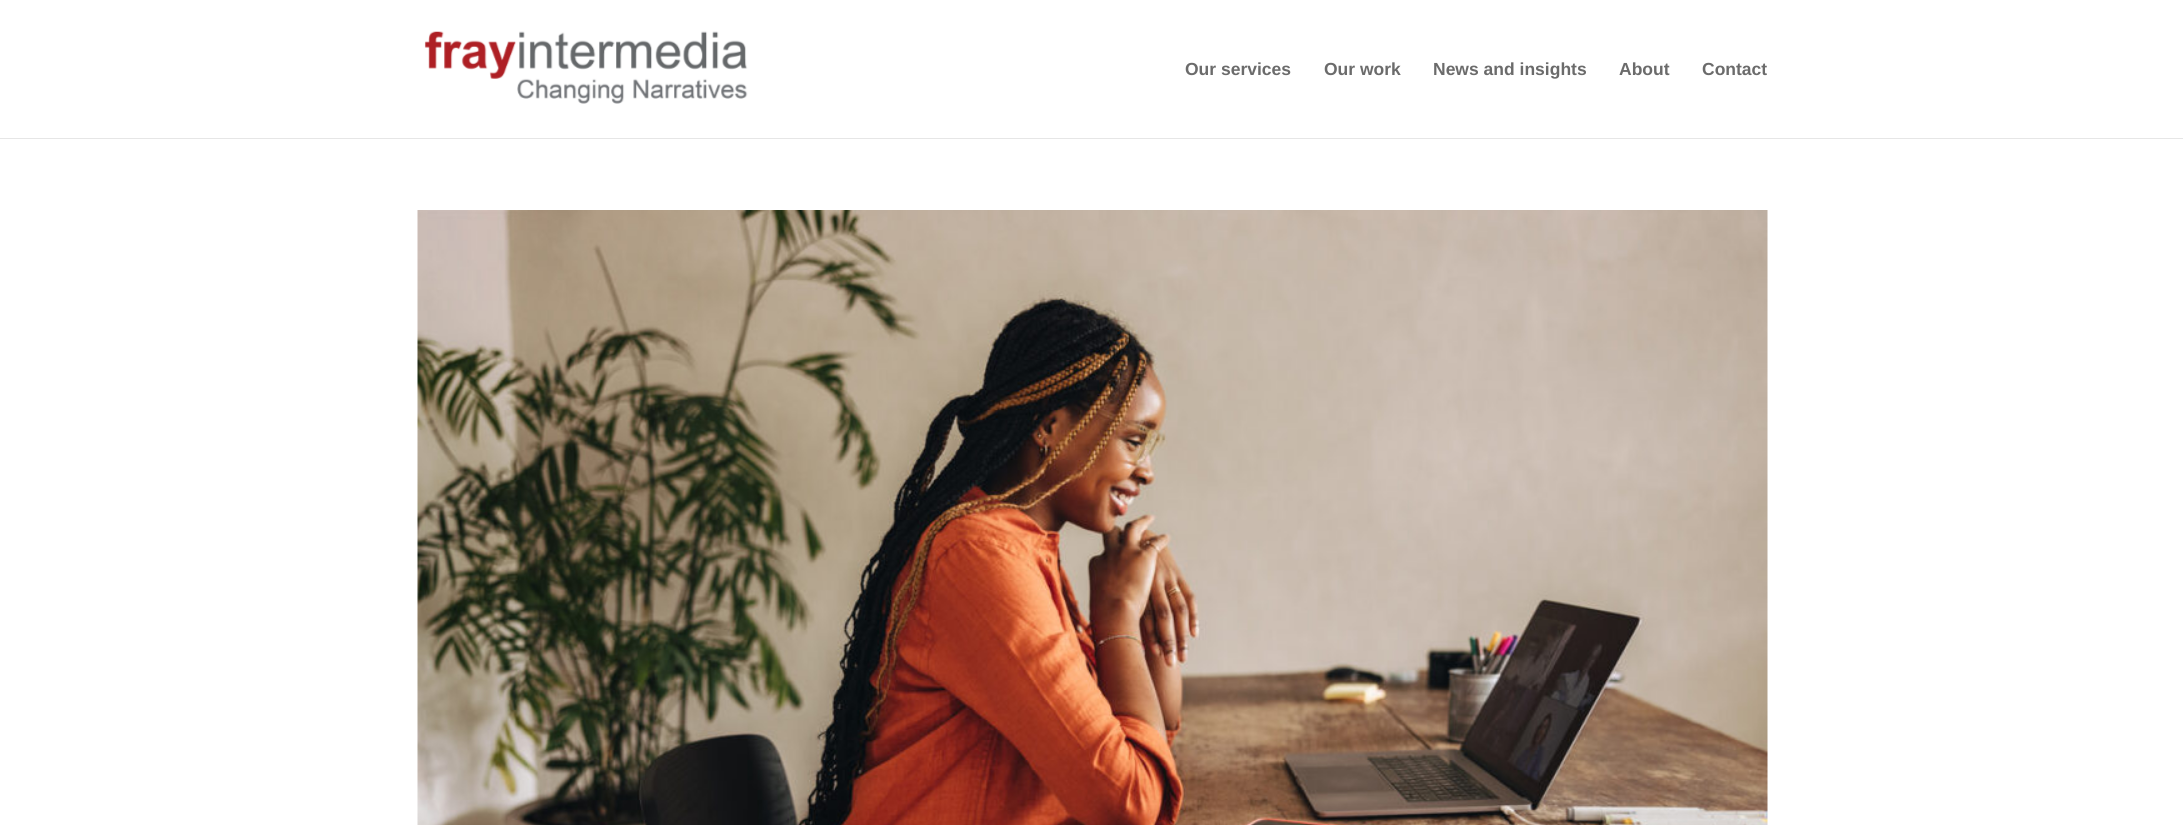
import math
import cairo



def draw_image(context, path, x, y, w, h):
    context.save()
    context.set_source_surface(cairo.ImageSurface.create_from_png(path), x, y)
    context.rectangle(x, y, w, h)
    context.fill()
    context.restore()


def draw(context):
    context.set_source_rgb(1, 1, 1)
    context.paint()
    context.set_source_rgb(230 / 255, 230 / 255, 230 / 255)
    context.new_path()
    context.move_to(0, 138)
    context.line_to(0, 139)
    context.line_to(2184, 139)
    context.line_to(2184, 1)
    context.line_to(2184, 138)
    context.close_path()
    context.fill()
    draw_image(context, "images/1.png", 424, 31, 324, 73)
    draw_image(context, "images/2.png", 417, 210, 1351, 615)
    context.select_font_face("Liberation Sans", cairo.FontSlant.NORMAL, cairo.FontWeight.BOLD)
    context.set_font_size(17.5)
    context.set_source_rgb(107 / 255, 107 / 255, 107 / 255)
    context.move_to(1185, 75)
    context.show_text("Our services")
    context.move_to(1324, 75)
    context.show_text("Our work")
    context.move_to(1433, 75)
    context.show_text("News and insights")
    context.move_to(1619, 75)
    context.show_text("About")
    context.move_to(1702, 75)
    context.show_text("Contact")


surface = cairo.ImageSurface(cairo.Format.RGB24, 2183, 825)
context = cairo.Context(surface)
options = cairo.FontOptions()
options.set_hint_metrics(cairo.HintMetrics.OFF)
options.set_hint_style(cairo.HintStyle.NONE)
context.set_font_options(options)
context.set_miter_limit(4)
draw(context)
surface.write_to_png("out.png")
